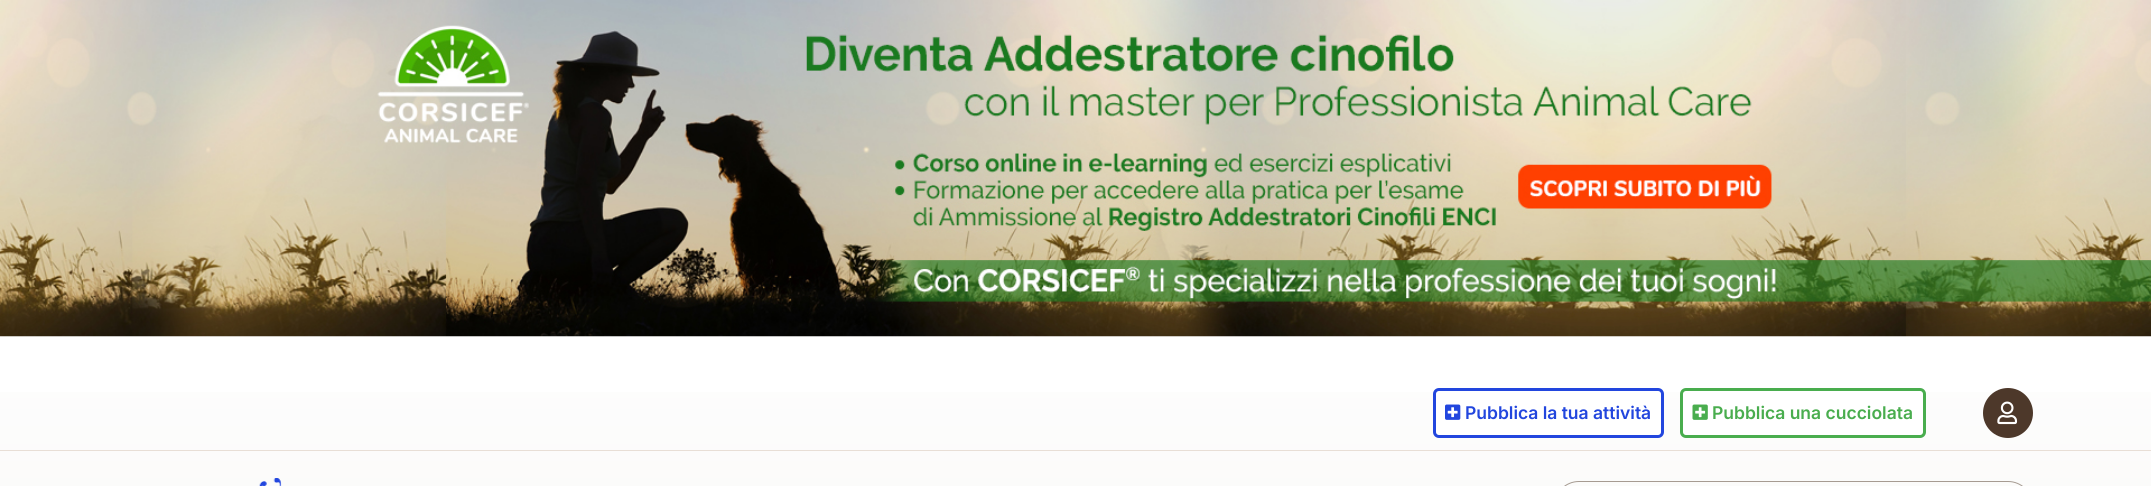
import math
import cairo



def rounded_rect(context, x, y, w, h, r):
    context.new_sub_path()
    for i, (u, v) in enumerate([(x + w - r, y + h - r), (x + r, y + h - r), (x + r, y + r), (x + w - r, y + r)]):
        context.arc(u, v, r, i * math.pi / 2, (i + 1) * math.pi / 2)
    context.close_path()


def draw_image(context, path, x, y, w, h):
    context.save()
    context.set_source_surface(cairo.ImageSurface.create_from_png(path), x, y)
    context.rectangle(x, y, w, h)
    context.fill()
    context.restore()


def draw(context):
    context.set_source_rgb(1, 1, 1)
    context.paint()
    draw_image(context, "images/1.png", 0, 0, 2151, 337)
    gradient = cairo.LinearGradient(1076, 375, 1076, 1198)
    gradient.add_color_stop_rgba(0, 253 / 255, 253 / 255, 253 / 255, 1)
    gradient.add_color_stop_rgba(0.5, 247 / 255, 244 / 255, 241 / 255, 1)
    gradient.add_color_stop_rgba(1, 247 / 255, 244 / 255, 241 / 255, 1)
    context.set_source(gradient)
    context.rectangle(0, 392, 2151, 94)
    context.fill()
    context.set_source_rgb(1, 1, 1)
    rounded_rect(context, 1434.5, 389.5, 228, 47, 4.5)
    context.fill_preserve()
    context.set_source_rgb(34 / 255, 70 / 255, 222 / 255)
    context.set_line_width(3)
    context.stroke()
    draw_image(context, "images/2.png", 1445, 404, 16, 16)
    context.set_source_rgb(1, 1, 1)
    rounded_rect(context, 1681.5, 389.5, 243, 47, 4.5)
    context.fill_preserve()
    context.set_source_rgb(73 / 255, 173 / 255, 78 / 255)
    context.stroke()
    draw_image(context, "images/3.png", 1692, 404, 16, 16)
    context.set_source_rgb(77 / 255, 56 / 255, 42 / 255)
    context.arc(2008, 413, 25, 0, 2 * math.pi)
    context.fill()
    draw_image(context, "images/4.png", 1997, 401, 21, 24)
    draw_image(context, "images/5.png", 259, 478, 23, 8)
    rounded_rect(context, 1554.5, 481.5, 478, 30, 24.5)
    context.set_source_rgb(166 / 255, 155 / 255, 146 / 255)
    context.set_line_width(1)
    context.stroke()
    context.set_source_rgb(232 / 255, 222 / 255, 214 / 255)
    context.rectangle(0, 450, 2151, 1)
    context.fill()
    context.select_font_face("Inter SemiBold")
    context.set_font_size(17.5)
    context.set_source_rgb(34 / 255, 70 / 255, 222 / 255)
    context.move_to(1465, 419)
    context.show_text("Pubblica la tua attività")
    context.set_source_rgb(73 / 255, 173 / 255, 78 / 255)
    context.move_to(1712, 419)
    context.show_text("Pubblica una cucciolata")


surface = cairo.ImageSurface(cairo.Format.RGB24, 2151, 486)
context = cairo.Context(surface)
options = cairo.FontOptions()
options.set_hint_metrics(cairo.HintMetrics.OFF)
options.set_hint_style(cairo.HintStyle.NONE)
context.set_font_options(options)
context.set_miter_limit(4)
draw(context)
surface.write_to_png("out.png")
